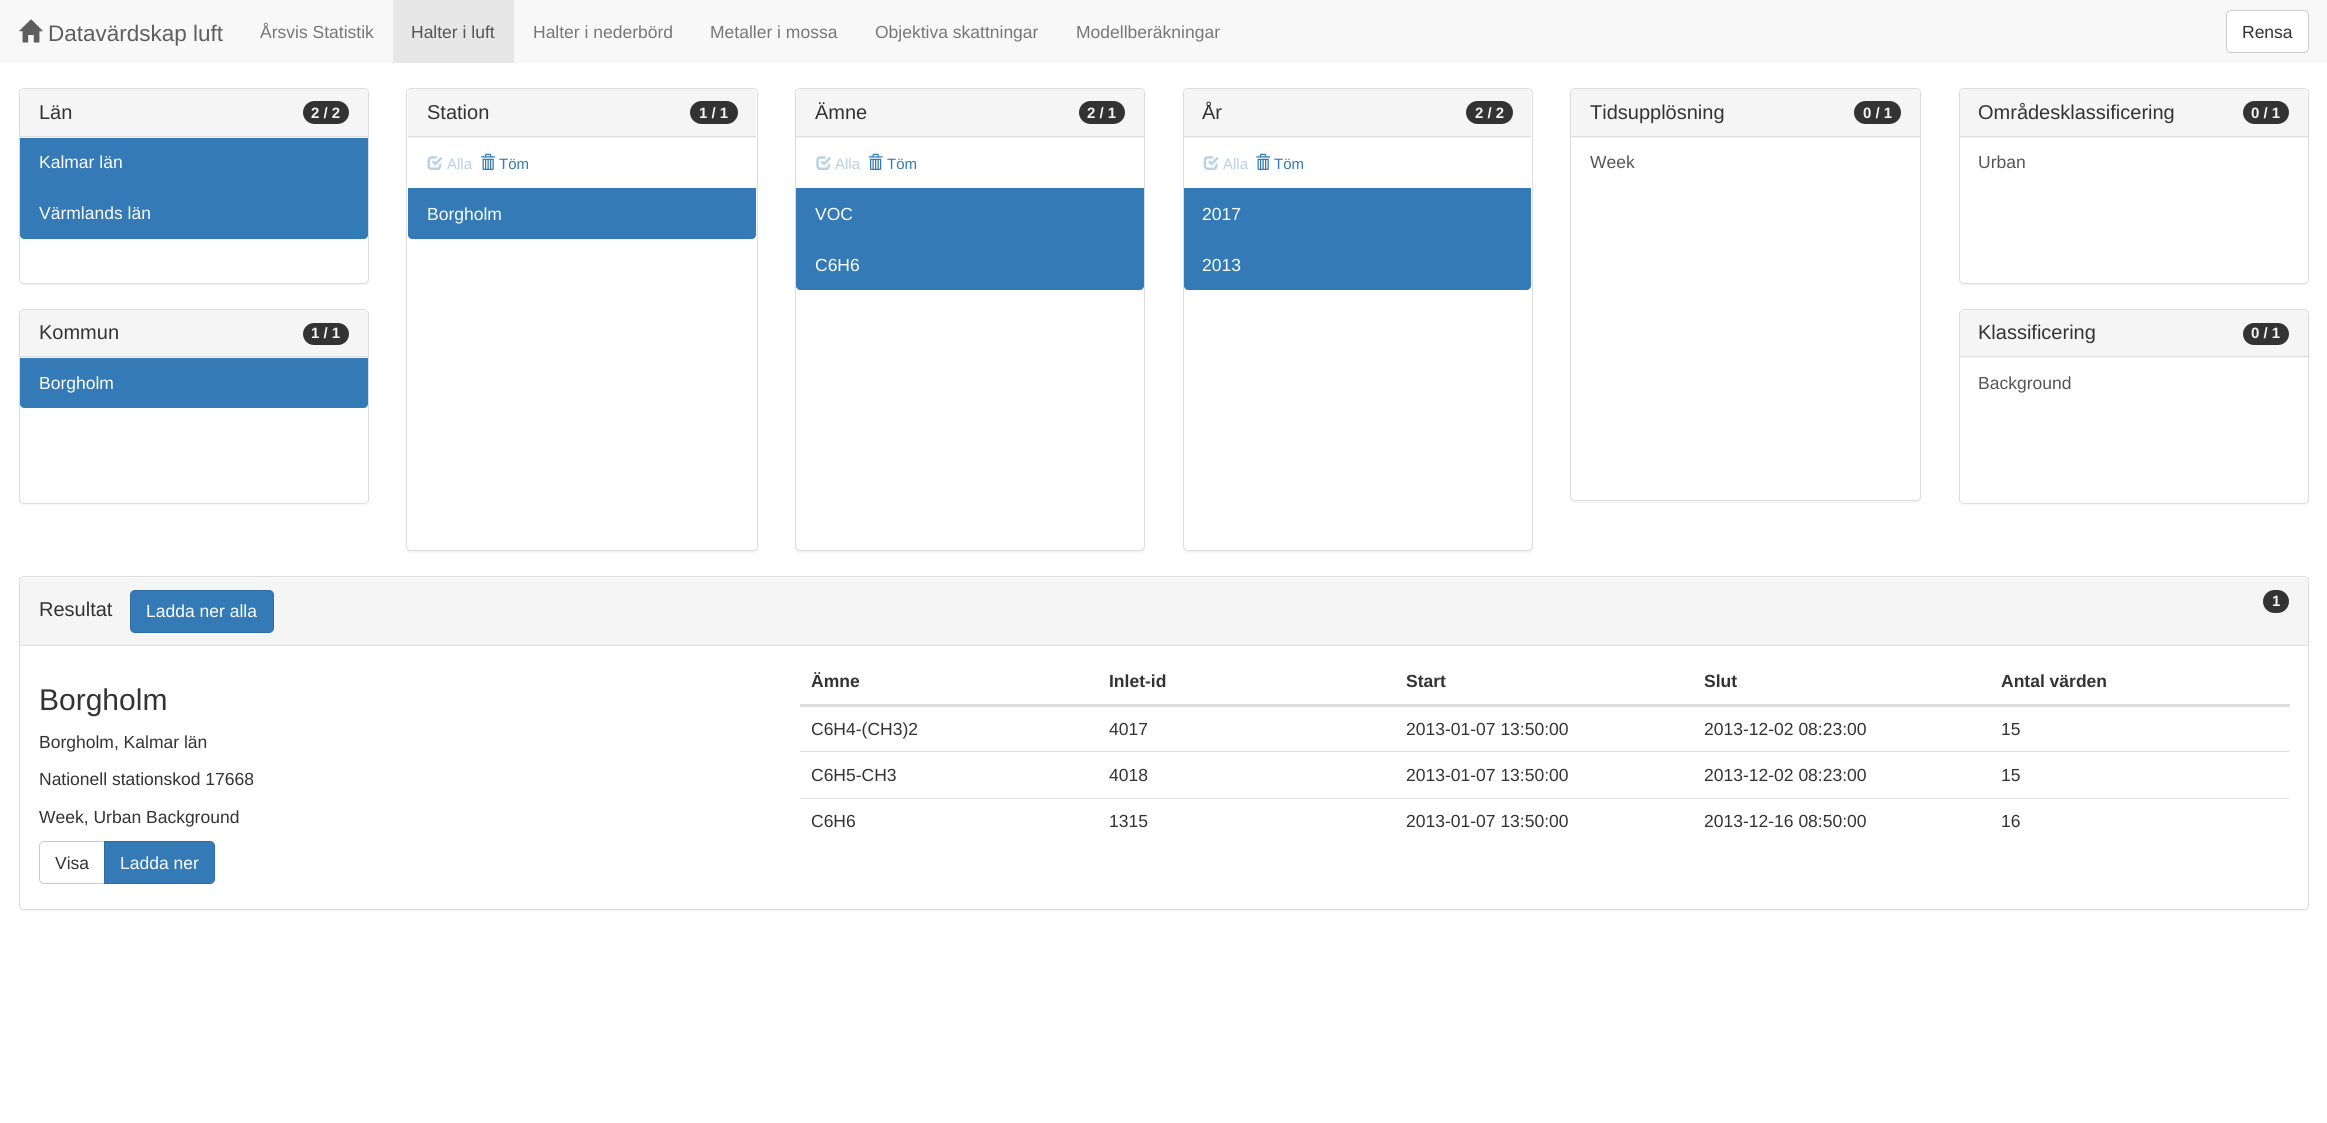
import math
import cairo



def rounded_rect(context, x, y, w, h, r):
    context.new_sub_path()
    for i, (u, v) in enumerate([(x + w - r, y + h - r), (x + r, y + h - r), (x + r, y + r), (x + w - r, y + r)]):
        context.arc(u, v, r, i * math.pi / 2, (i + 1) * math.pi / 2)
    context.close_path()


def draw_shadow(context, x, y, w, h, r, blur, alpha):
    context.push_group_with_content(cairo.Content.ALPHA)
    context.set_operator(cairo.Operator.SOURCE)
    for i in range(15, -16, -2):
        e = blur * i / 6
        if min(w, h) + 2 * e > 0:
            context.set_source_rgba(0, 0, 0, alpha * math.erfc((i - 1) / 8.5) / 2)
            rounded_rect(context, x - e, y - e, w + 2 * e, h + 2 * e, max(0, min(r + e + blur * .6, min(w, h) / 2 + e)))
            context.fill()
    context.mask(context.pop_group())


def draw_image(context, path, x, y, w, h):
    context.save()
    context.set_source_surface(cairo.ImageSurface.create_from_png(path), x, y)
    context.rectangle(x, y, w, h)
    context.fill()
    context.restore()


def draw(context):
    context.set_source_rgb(1, 1, 1)
    context.paint()
    context.set_source_rgb(248 / 255, 248 / 255, 248 / 255)
    context.rectangle(0, 0, 2327, 63)
    context.fill()
    draw_image(context, "images/1.png", 19, 19, 24, 24)
    context.set_source_rgb(231 / 255, 231 / 255, 231 / 255)
    context.rectangle(393, 0, 121, 63)
    context.fill()
    context.set_source_rgb(1, 1, 1)
    rounded_rect(context, 2226.5, 10.5, 82, 42, 4.5)
    context.fill_preserve()
    context.set_source_rgb(204 / 255, 204 / 255, 204 / 255)
    context.set_line_width(1)
    context.stroke()
    context.set_source_rgb(0, 0, 0)
    draw_shadow(context, 19, 89, 350, 196, 5, 0.5, 0.05)
    context.set_source_rgb(1, 1, 1)
    rounded_rect(context, 19.5, 88.5, 349, 195, 4.5)
    context.fill_preserve()
    context.set_source_rgb(221 / 255, 221 / 255, 221 / 255)
    context.stroke()
    context.set_source_rgb(245 / 255, 245 / 255, 245 / 255)
    context.new_path()
    context.move_to(24, 89)
    context.line_to(364, 89)
    context.curve_to(366, 89, 368, 91, 368, 93)
    context.line_to(368, 138)
    context.line_to(20, 138)
    context.line_to(20, 93)
    context.curve_to(20, 91, 22, 89, 24, 89)
    context.close_path()
    context.fill()
    context.set_source_rgb(221 / 255, 221 / 255, 221 / 255)
    context.rectangle(20, 136, 348, 1)
    context.fill()
    context.set_source_rgb(51 / 255, 51 / 255, 51 / 255)
    rounded_rect(context, 303, 101, 46, 23, 11.5)
    context.fill()
    context.set_source_rgb(51 / 255, 122 / 255, 183 / 255)
    context.rectangle(20, 138, 348, 50)
    context.fill()
    context.new_path()
    context.move_to(20, 188)
    context.line_to(368, 188)
    context.line_to(368, 235)
    context.curve_to(368, 237, 366, 239, 364, 239)
    context.line_to(24, 239)
    context.curve_to(22, 239, 20, 237, 20, 235)
    context.close_path()
    context.fill()
    context.set_source_rgb(0, 0, 0)
    draw_shadow(context, 19, 310, 350, 195, 5, 0.5, 0.05)
    context.set_source_rgb(1, 1, 1)
    rounded_rect(context, 19.5, 309.5, 349, 194, 4.5)
    context.fill_preserve()
    context.set_source_rgb(221 / 255, 221 / 255, 221 / 255)
    context.stroke()
    context.set_source_rgb(245 / 255, 245 / 255, 245 / 255)
    context.new_path()
    context.move_to(24, 310)
    context.line_to(364, 310)
    context.curve_to(366, 310, 368, 312, 368, 314)
    context.line_to(368, 358)
    context.line_to(20, 358)
    context.line_to(20, 314)
    context.curve_to(20, 312, 22, 310, 24, 310)
    context.close_path()
    context.fill()
    context.set_source_rgb(221 / 255, 221 / 255, 221 / 255)
    context.rectangle(20, 356, 348, 1)
    context.fill()
    context.set_source_rgb(51 / 255, 51 / 255, 51 / 255)
    rounded_rect(context, 303, 323, 46, 22, 11)
    context.fill()
    context.set_source_rgb(51 / 255, 122 / 255, 183 / 255)
    context.new_path()
    context.move_to(20, 358)
    context.line_to(368, 358)
    context.line_to(368, 404)
    context.curve_to(368, 406, 366, 408, 364, 408)
    context.line_to(24, 408)
    context.curve_to(22, 408, 20, 406, 20, 404)
    context.close_path()
    context.fill()
    context.set_source_rgb(0, 0, 0)
    draw_shadow(context, 406, 89, 352, 464, 5, 0.5, 0.05)
    context.set_source_rgb(1, 1, 1)
    rounded_rect(context, 406.5, 88.5, 351, 462, 4.5)
    context.fill_preserve()
    context.set_source_rgb(221 / 255, 221 / 255, 221 / 255)
    context.stroke()
    context.set_source_rgb(245 / 255, 245 / 255, 245 / 255)
    context.new_path()
    context.move_to(412, 89)
    context.line_to(752, 89)
    context.curve_to(754, 89, 756, 91, 756, 93)
    context.line_to(756, 138)
    context.line_to(408, 138)
    context.line_to(408, 93)
    context.curve_to(408, 91, 410, 89, 412, 89)
    context.close_path()
    context.fill()
    context.set_source_rgb(221 / 255, 221 / 255, 221 / 255)
    context.rectangle(408, 136, 348, 1)
    context.fill()
    context.set_source_rgb(51 / 255, 51 / 255, 51 / 255)
    rounded_rect(context, 690, 101, 48, 23, 11.5)
    context.fill()
    draw_image(context, "images/2.png", 427, 156, 16, 14)
    draw_image(context, "images/3.png", 481, 153, 14, 17)
    context.set_source_rgb(51 / 255, 122 / 255, 183 / 255)
    context.new_path()
    context.move_to(408, 188)
    context.line_to(756, 188)
    context.line_to(756, 235)
    context.curve_to(756, 237, 754, 239, 752, 239)
    context.line_to(412, 239)
    context.curve_to(410, 239, 408, 237, 408, 235)
    context.close_path()
    context.fill()
    context.set_source_rgb(0, 0, 0)
    draw_shadow(context, 795, 89, 350, 464, 5, 0.5, 0.05)
    context.set_source_rgb(1, 1, 1)
    rounded_rect(context, 795.5, 88.5, 349, 462, 4.5)
    context.fill_preserve()
    context.set_source_rgb(221 / 255, 221 / 255, 221 / 255)
    context.stroke()
    context.set_source_rgb(245 / 255, 245 / 255, 245 / 255)
    context.new_path()
    context.move_to(800, 89)
    context.line_to(1140, 89)
    context.curve_to(1142, 89, 1144, 91, 1144, 93)
    context.line_to(1144, 138)
    context.line_to(796, 138)
    context.line_to(796, 93)
    context.curve_to(796, 91, 798, 89, 800, 89)
    context.close_path()
    context.fill()
    context.set_source_rgb(221 / 255, 221 / 255, 221 / 255)
    context.rectangle(796, 136, 348, 1)
    context.fill()
    context.set_source_rgb(51 / 255, 51 / 255, 51 / 255)
    rounded_rect(context, 1079, 101, 46, 23, 11.5)
    context.fill()
    draw_image(context, "images/4.png", 816, 156, 15, 14)
    draw_image(context, "images/5.png", 868, 153, 15, 17)
    context.set_source_rgb(51 / 255, 122 / 255, 183 / 255)
    context.rectangle(796, 188, 348, 51)
    context.fill()
    context.new_path()
    context.move_to(796, 239)
    context.line_to(1144, 239)
    context.line_to(1144, 286)
    context.curve_to(1144, 288, 1142, 290, 1140, 290)
    context.line_to(800, 290)
    context.curve_to(798, 290, 796, 288, 796, 286)
    context.close_path()
    context.fill()
    context.set_source_rgb(0, 0, 0)
    draw_shadow(context, 1183, 89, 350, 464, 5, 0.5, 0.05)
    context.set_source_rgb(1, 1, 1)
    rounded_rect(context, 1183.5, 88.5, 349, 462, 4.5)
    context.fill_preserve()
    context.set_source_rgb(221 / 255, 221 / 255, 221 / 255)
    context.stroke()
    context.set_source_rgb(245 / 255, 245 / 255, 245 / 255)
    context.new_path()
    context.move_to(1188, 89)
    context.line_to(1527, 89)
    context.curve_to(1529, 89, 1531, 91, 1531, 93)
    context.line_to(1531, 138)
    context.line_to(1184, 138)
    context.line_to(1184, 93)
    context.curve_to(1184, 91, 1186, 89, 1188, 89)
    context.close_path()
    context.fill()
    context.set_source_rgb(221 / 255, 221 / 255, 221 / 255)
    context.rectangle(1184, 136, 347, 1)
    context.fill()
    context.set_source_rgb(51 / 255, 51 / 255, 51 / 255)
    rounded_rect(context, 1466, 101, 47, 23, 11.5)
    context.fill()
    draw_image(context, "images/6.png", 1203, 156, 16, 14)
    draw_image(context, "images/3.png", 1256, 153, 14, 17)
    context.set_source_rgb(51 / 255, 122 / 255, 183 / 255)
    context.rectangle(1184, 188, 347, 51)
    context.fill()
    context.new_path()
    context.move_to(1184, 239)
    context.line_to(1531, 239)
    context.line_to(1531, 286)
    context.curve_to(1531, 288, 1529, 290, 1527, 290)
    context.line_to(1188, 290)
    context.curve_to(1186, 290, 1184, 288, 1184, 286)
    context.close_path()
    context.fill()
    context.set_source_rgb(0, 0, 0)
    draw_shadow(context, 1570, 89, 351, 414, 5, 0.5, 0.05)
    context.set_source_rgb(1, 1, 1)
    rounded_rect(context, 1570.5, 88.5, 350, 412, 4.5)
    context.fill_preserve()
    context.set_source_rgb(221 / 255, 221 / 255, 221 / 255)
    context.stroke()
    context.set_source_rgb(245 / 255, 245 / 255, 245 / 255)
    context.new_path()
    context.move_to(1575, 89)
    context.line_to(1916, 89)
    context.curve_to(1918, 89, 1920, 91, 1920, 93)
    context.line_to(1920, 138)
    context.line_to(1571, 138)
    context.line_to(1571, 93)
    context.curve_to(1571, 91, 1573, 89, 1575, 89)
    context.close_path()
    context.fill()
    context.set_source_rgb(221 / 255, 221 / 255, 221 / 255)
    context.rectangle(1571, 136, 349, 1)
    context.fill()
    context.set_source_rgb(51 / 255, 51 / 255, 51 / 255)
    rounded_rect(context, 1854, 101, 47, 23, 11.5)
    context.fill()
    context.set_source_rgb(0, 0, 0)
    draw_shadow(context, 1959, 89, 350, 196, 5, 0.5, 0.05)
    context.set_source_rgb(1, 1, 1)
    rounded_rect(context, 1959.5, 88.5, 349, 195, 4.5)
    context.fill_preserve()
    context.set_source_rgb(221 / 255, 221 / 255, 221 / 255)
    context.stroke()
    context.set_source_rgb(245 / 255, 245 / 255, 245 / 255)
    context.new_path()
    context.move_to(1964, 89)
    context.line_to(2304, 89)
    context.curve_to(2306, 89, 2308, 91, 2308, 93)
    context.line_to(2308, 138)
    context.line_to(1960, 138)
    context.line_to(1960, 93)
    context.curve_to(1960, 91, 1962, 89, 1964, 89)
    context.close_path()
    context.fill()
    context.set_source_rgb(221 / 255, 221 / 255, 221 / 255)
    context.rectangle(1960, 136, 348, 1)
    context.fill()
    context.set_source_rgb(51 / 255, 51 / 255, 51 / 255)
    rounded_rect(context, 2243, 101, 46, 23, 11.5)
    context.fill()
    context.set_source_rgb(0, 0, 0)
    draw_shadow(context, 1959, 310, 350, 195, 5, 0.5, 0.05)
    context.set_source_rgb(1, 1, 1)
    rounded_rect(context, 1959.5, 309.5, 349, 194, 4.5)
    context.fill_preserve()
    context.set_source_rgb(221 / 255, 221 / 255, 221 / 255)
    context.stroke()
    context.set_source_rgb(245 / 255, 245 / 255, 245 / 255)
    context.new_path()
    context.move_to(1964, 310)
    context.line_to(2304, 310)
    context.curve_to(2306, 310, 2308, 312, 2308, 314)
    context.line_to(2308, 358)
    context.line_to(1960, 358)
    context.line_to(1960, 314)
    context.curve_to(1960, 312, 1962, 310, 1964, 310)
    context.close_path()
    context.fill()
    context.set_source_rgb(221 / 255, 221 / 255, 221 / 255)
    context.rectangle(1960, 356, 348, 1)
    context.fill()
    context.set_source_rgb(51 / 255, 51 / 255, 51 / 255)
    rounded_rect(context, 2243, 323, 46, 22, 11)
    context.fill()
    context.set_source_rgb(0, 0, 0)
    draw_shadow(context, 19, 578, 2290, 333, 5, 0.5, 0.05)
    context.set_source_rgb(1, 1, 1)
    rounded_rect(context, 19.5, 576.5, 2289, 333, 4.5)
    context.fill_preserve()
    context.set_source_rgb(221 / 255, 221 / 255, 221 / 255)
    context.stroke()
    context.set_source_rgb(245 / 255, 245 / 255, 245 / 255)
    context.new_path()
    context.move_to(24, 578)
    context.line_to(2304, 578)
    context.curve_to(2306, 578, 2308, 580, 2308, 582)
    context.line_to(2308, 646)
    context.line_to(20, 646)
    context.line_to(20, 582)
    context.curve_to(20, 580, 22, 578, 24, 578)
    context.close_path()
    context.fill()
    context.set_source_rgb(221 / 255, 221 / 255, 221 / 255)
    context.rectangle(20, 645, 2288, 1)
    context.fill()
    context.set_source_rgb(51 / 255, 122 / 255, 183 / 255)
    rounded_rect(context, 130.5, 590.5, 143, 42, 4.5)
    context.fill_preserve()
    context.set_source_rgb(46 / 255, 109 / 255, 164 / 255)
    context.stroke()
    context.set_source_rgb(51 / 255, 51 / 255, 51 / 255)
    rounded_rect(context, 2263, 590, 26, 23, 11.5)
    context.fill()
    context.set_source_rgb(1, 1, 1)
    context.new_path()
    context.move_to(20, 646)
    context.line_to(2308, 646)
    context.line_to(2308, 905)
    context.curve_to(2308, 907, 2306, 909, 2304, 909)
    context.line_to(24, 909)
    context.curve_to(22, 909, 20, 907, 20, 905)
    context.close_path()
    context.fill()
    context.new_path()
    context.move_to(44, 841.5)
    context.line_to(104.5, 841.5)
    context.line_to(104.5, 883.5)
    context.line_to(44, 883.5)
    context.curve_to(41.5, 883.5, 39.5, 881.5, 39.5, 879)
    context.line_to(39.5, 846)
    context.curve_to(39.5, 843.5, 41.5, 841.5, 44, 841.5)
    context.close_path()
    context.set_source_rgb(204 / 255, 204 / 255, 204 / 255)
    context.stroke()
    context.set_source_rgb(51 / 255, 122 / 255, 183 / 255)
    context.new_path()
    context.move_to(104.5, 841.5)
    context.line_to(210, 841.5)
    context.curve_to(212.5, 841.5, 214.5, 843.5, 214.5, 846)
    context.line_to(214.5, 879)
    context.curve_to(214.5, 881.5, 212.5, 883.5, 210, 883.5)
    context.line_to(104.5, 883.5)
    context.close_path()
    context.fill_preserve()
    context.set_source_rgb(46 / 255, 109 / 255, 164 / 255)
    context.stroke()
    context.set_source_rgb(221 / 255, 221 / 255, 221 / 255)
    context.rectangle(800, 704, 1490, 3)
    context.fill()
    context.rectangle(800, 751, 1489, 1)
    context.fill()
    context.rectangle(800, 798, 1489, 1)
    context.fill()
    context.select_font_face("Liberation Sans")
    context.set_font_size(22.5)
    context.set_source_rgb(94 / 255, 94 / 255, 94 / 255)
    context.move_to(48, 41)
    context.show_text("Datavärdskap luft")
    context.set_font_size(17.5)
    context.set_source_rgb(119 / 255, 119 / 255, 119 / 255)
    context.move_to(260, 38)
    context.show_text("Årsvis Statistik")
    context.set_source_rgb(85 / 255, 85 / 255, 85 / 255)
    context.move_to(411, 38)
    context.show_text("Halter i luft")
    context.set_source_rgb(119 / 255, 119 / 255, 119 / 255)
    context.move_to(533, 38)
    context.show_text("Halter i nederbörd")
    context.move_to(710, 38)
    context.show_text("Metaller i mossa")
    context.move_to(875, 38)
    context.show_text("Objektiva skattningar")
    context.move_to(1076, 38)
    context.show_text("Modellberäkningar")
    context.set_source_rgb(51 / 255, 51 / 255, 51 / 255)
    context.move_to(2242, 38)
    context.show_text("Rensa")
    context.set_font_size(20)
    context.move_to(39, 119)
    context.show_text("Län")
    context.select_font_face("Liberation Sans", cairo.FontSlant.NORMAL, cairo.FontWeight.BOLD)
    context.set_font_size(15)
    context.set_source_rgb(245 / 255, 245 / 255, 245 / 255)
    context.move_to(311, 118)
    context.show_text("2 / 2")
    context.select_font_face("Liberation Sans")
    context.set_font_size(17.5)
    context.set_source_rgb(1, 1, 1)
    context.move_to(39, 168)
    context.show_text("Kalmar län")
    context.move_to(39, 219)
    context.show_text("Värmlands län")
    context.set_font_size(20)
    context.set_source_rgb(51 / 255, 51 / 255, 51 / 255)
    context.move_to(39, 339)
    context.show_text("Kommun")
    context.select_font_face("Liberation Sans", cairo.FontSlant.NORMAL, cairo.FontWeight.BOLD)
    context.set_font_size(15)
    context.set_source_rgb(245 / 255, 245 / 255, 245 / 255)
    context.move_to(311, 338)
    context.show_text("1 / 1")
    context.select_font_face("Liberation Sans")
    context.set_font_size(17.5)
    context.set_source_rgb(1, 1, 1)
    context.move_to(39, 389)
    context.show_text("Borgholm")
    context.set_font_size(20)
    context.set_source_rgb(51 / 255, 51 / 255, 51 / 255)
    context.move_to(427, 119)
    context.show_text("Station")
    context.select_font_face("Liberation Sans", cairo.FontSlant.NORMAL, cairo.FontWeight.BOLD)
    context.set_font_size(15)
    context.set_source_rgb(245 / 255, 245 / 255, 245 / 255)
    context.move_to(699, 118)
    context.show_text("1 / 1")
    context.select_font_face("Liberation Sans")
    context.set_source_rgb(184 / 255, 208 / 255, 230 / 255)
    context.move_to(447, 169)
    context.show_text("Alla")
    context.set_source_rgb(51 / 255, 122 / 255, 183 / 255)
    context.move_to(499, 169)
    context.show_text("Töm")
    context.set_font_size(17.5)
    context.set_source_rgb(1, 1, 1)
    context.move_to(427, 220)
    context.show_text("Borgholm")
    context.set_font_size(20)
    context.set_source_rgb(51 / 255, 51 / 255, 51 / 255)
    context.move_to(815, 119)
    context.show_text("Ämne")
    context.select_font_face("Liberation Sans", cairo.FontSlant.NORMAL, cairo.FontWeight.BOLD)
    context.set_font_size(15)
    context.set_source_rgb(245 / 255, 245 / 255, 245 / 255)
    context.move_to(1087, 118)
    context.show_text("2 / 1")
    context.select_font_face("Liberation Sans")
    context.set_source_rgb(184 / 255, 208 / 255, 230 / 255)
    context.move_to(835, 169)
    context.show_text("Alla")
    context.set_source_rgb(51 / 255, 122 / 255, 183 / 255)
    context.move_to(887, 169)
    context.show_text("Töm")
    context.set_font_size(17.5)
    context.set_source_rgb(1, 1, 1)
    context.move_to(815, 220)
    context.show_text("VOC")
    context.move_to(815, 271)
    context.show_text("C6H6")
    context.set_font_size(20)
    context.set_source_rgb(51 / 255, 51 / 255, 51 / 255)
    context.move_to(1202, 119)
    context.show_text("År")
    context.select_font_face("Liberation Sans", cairo.FontSlant.NORMAL, cairo.FontWeight.BOLD)
    context.set_font_size(15)
    context.set_source_rgb(245 / 255, 245 / 255, 245 / 255)
    context.move_to(1475, 118)
    context.show_text("2 / 2")
    context.select_font_face("Liberation Sans")
    context.set_source_rgb(184 / 255, 208 / 255, 230 / 255)
    context.move_to(1223, 169)
    context.show_text("Alla")
    context.set_source_rgb(51 / 255, 122 / 255, 183 / 255)
    context.move_to(1274, 169)
    context.show_text("Töm")
    context.set_font_size(17.5)
    context.set_source_rgb(1, 1, 1)
    context.move_to(1202, 220)
    context.show_text("2017")
    context.move_to(1202, 271)
    context.show_text("2013")
    context.set_font_size(20)
    context.set_source_rgb(51 / 255, 51 / 255, 51 / 255)
    context.move_to(1590, 119)
    context.show_text("Tidsupplösning")
    context.select_font_face("Liberation Sans", cairo.FontSlant.NORMAL, cairo.FontWeight.BOLD)
    context.set_font_size(15)
    context.set_source_rgb(245 / 255, 245 / 255, 245 / 255)
    context.move_to(1863, 118)
    context.show_text("0 / 1")
    context.select_font_face("Liberation Sans")
    context.set_font_size(17.5)
    context.set_source_rgb(85 / 255, 85 / 255, 85 / 255)
    context.move_to(1590, 168)
    context.show_text("Week")
    context.set_font_size(20)
    context.set_source_rgb(51 / 255, 51 / 255, 51 / 255)
    context.move_to(1978, 119)
    context.show_text("Områdesklassificering")
    context.select_font_face("Liberation Sans", cairo.FontSlant.NORMAL, cairo.FontWeight.BOLD)
    context.set_font_size(15)
    context.set_source_rgb(245 / 255, 245 / 255, 245 / 255)
    context.move_to(2251, 118)
    context.show_text("0 / 1")
    context.select_font_face("Liberation Sans")
    context.set_font_size(17.5)
    context.set_source_rgb(85 / 255, 85 / 255, 85 / 255)
    context.move_to(1978, 168)
    context.show_text("Urban")
    context.set_font_size(20)
    context.set_source_rgb(51 / 255, 51 / 255, 51 / 255)
    context.move_to(1978, 339)
    context.show_text("Klassificering")
    context.select_font_face("Liberation Sans", cairo.FontSlant.NORMAL, cairo.FontWeight.BOLD)
    context.set_font_size(15)
    context.set_source_rgb(245 / 255, 245 / 255, 245 / 255)
    context.move_to(2251, 338)
    context.show_text("0 / 1")
    context.select_font_face("Liberation Sans")
    context.set_font_size(17.5)
    context.set_source_rgb(85 / 255, 85 / 255, 85 / 255)
    context.move_to(1978, 389)
    context.show_text("Background")
    context.set_font_size(20)
    context.set_source_rgb(51 / 255, 51 / 255, 51 / 255)
    context.move_to(39, 616)
    context.show_text("Resultat")
    context.set_font_size(17.5)
    context.set_source_rgb(1, 1, 1)
    context.move_to(146, 617)
    context.show_text("Ladda ner alla")
    context.select_font_face("Liberation Sans", cairo.FontSlant.NORMAL, cairo.FontWeight.BOLD)
    context.set_font_size(15)
    context.set_source_rgb(245 / 255, 245 / 255, 245 / 255)
    context.move_to(2272, 606)
    context.show_text("1")
    context.select_font_face("Liberation Sans")
    context.set_font_size(30)
    context.set_source_rgb(51 / 255, 51 / 255, 51 / 255)
    context.move_to(39, 710)
    context.show_text("Borgholm")
    context.set_font_size(17.5)
    context.move_to(39, 748)
    context.show_text("Borgholm, Kalmar län")
    context.move_to(39, 785)
    context.show_text("Nationell stationskod 17668")
    context.move_to(39, 823)
    context.show_text("Week, Urban Background")
    context.move_to(55, 869)
    context.show_text("Visa")
    context.set_source_rgb(1, 1, 1)
    context.move_to(120, 869)
    context.show_text("Ladda ner")
    context.select_font_face("Liberation Sans", cairo.FontSlant.NORMAL, cairo.FontWeight.BOLD)
    context.set_source_rgb(51 / 255, 51 / 255, 51 / 255)
    context.move_to(811, 687)
    context.show_text("Ämne")
    context.move_to(1109, 687)
    context.show_text("Inlet-id")
    context.move_to(1406, 687)
    context.show_text("Start")
    context.move_to(1704, 687)
    context.show_text("Slut")
    context.move_to(2001, 687)
    context.show_text("Antal värden")
    context.select_font_face("Liberation Sans")
    context.move_to(811, 735)
    context.show_text("C6H4-(CH3)2")
    context.move_to(1109, 735)
    context.show_text("4017")
    context.move_to(1406, 735)
    context.show_text("2013-01-07 13:50:00")
    context.move_to(1704, 735)
    context.show_text("2013-12-02 08:23:00")
    context.move_to(2001, 735)
    context.show_text("15")
    context.move_to(811, 781)
    context.show_text("C6H5-CH3")
    context.move_to(1109, 781)
    context.show_text("4018")
    context.move_to(1406, 781)
    context.show_text("2013-01-07 13:50:00")
    context.move_to(1704, 781)
    context.show_text("2013-12-02 08:23:00")
    context.move_to(2001, 781)
    context.show_text("15")
    context.move_to(811, 827)
    context.show_text("C6H6")
    context.move_to(1109, 827)
    context.show_text("1315")
    context.move_to(1406, 827)
    context.show_text("2013-01-07 13:50:00")
    context.move_to(1704, 827)
    context.show_text("2013-12-16 08:50:00")
    context.move_to(2001, 827)
    context.show_text("16")


surface = cairo.ImageSurface(cairo.Format.RGB24, 2327, 1123)
context = cairo.Context(surface)
options = cairo.FontOptions()
options.set_hint_metrics(cairo.HintMetrics.OFF)
options.set_hint_style(cairo.HintStyle.NONE)
context.set_font_options(options)
context.set_miter_limit(4)
draw(context)
surface.write_to_png("out.png")
